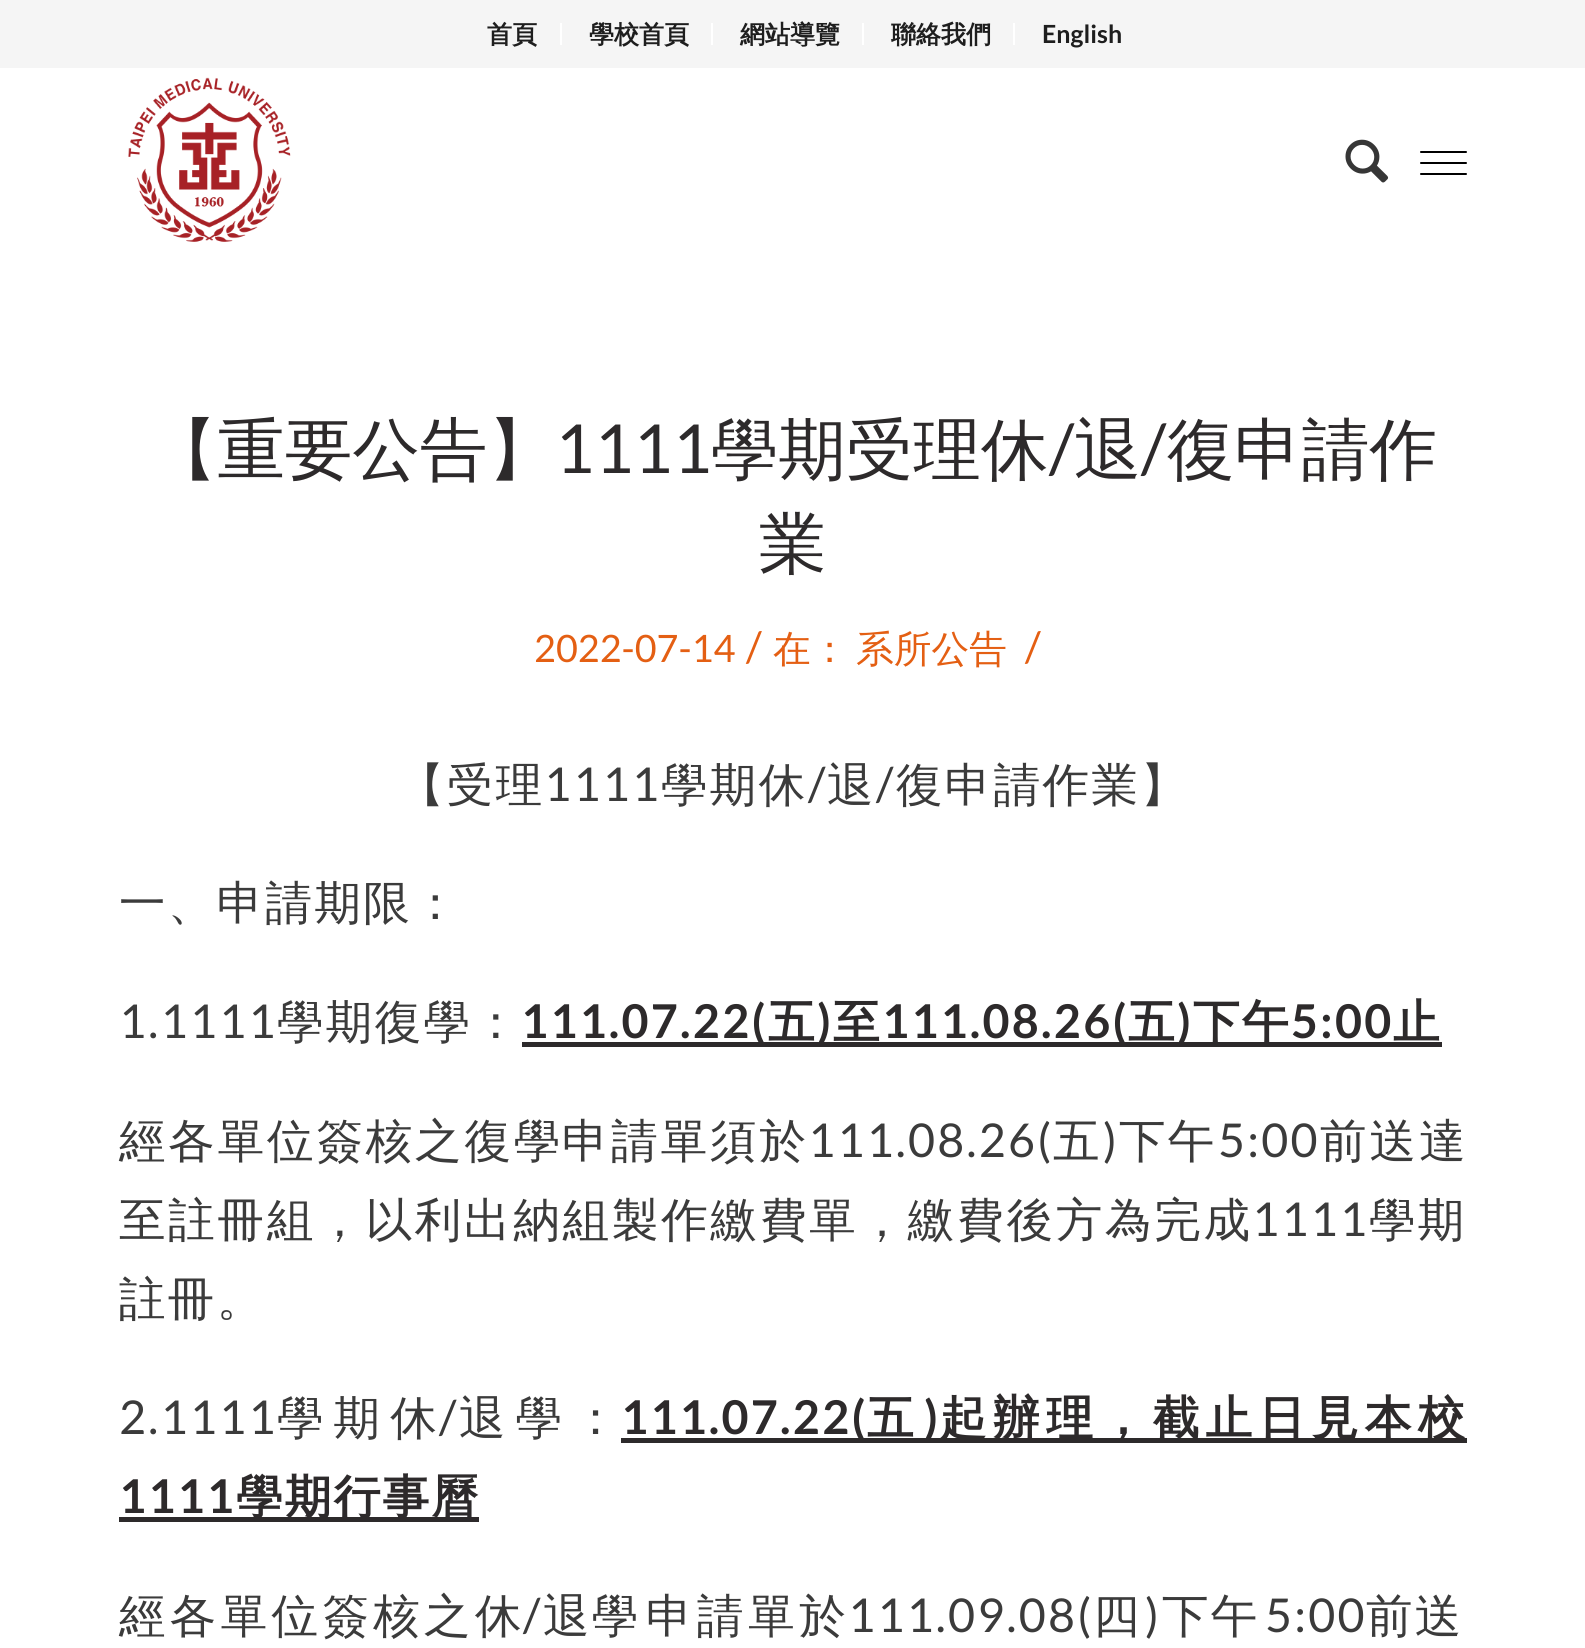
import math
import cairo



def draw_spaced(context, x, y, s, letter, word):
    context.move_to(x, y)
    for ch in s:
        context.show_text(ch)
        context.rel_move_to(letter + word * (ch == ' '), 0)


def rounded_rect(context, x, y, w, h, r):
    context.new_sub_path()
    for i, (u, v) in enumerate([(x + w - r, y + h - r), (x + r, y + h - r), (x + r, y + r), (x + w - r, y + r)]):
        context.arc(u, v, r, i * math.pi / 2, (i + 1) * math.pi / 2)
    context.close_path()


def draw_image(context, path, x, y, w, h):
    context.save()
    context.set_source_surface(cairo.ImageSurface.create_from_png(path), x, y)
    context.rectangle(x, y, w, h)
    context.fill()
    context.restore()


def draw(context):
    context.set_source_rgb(1, 1, 1)
    context.paint()
    context.set_source_rgb(245 / 255, 245 / 255, 245 / 255)
    context.rectangle(0, 0, 1585, 68)
    context.fill()
    context.set_source_rgb(1, 1, 1)
    context.rectangle(560, 23, 2, 22)
    context.fill()
    context.rectangle(711, 23, 2, 22)
    context.fill()
    context.rectangle(862, 23, 2, 22)
    context.fill()
    context.rectangle(1013, 23, 2, 22)
    context.fill()
    draw_image(context, "images/1.png", 128, 77, 163, 165)
    draw_image(context, "images/2.png", 1345, 139, 44, 44)
    context.set_source_rgb(0, 0, 0)
    rounded_rect(context, 1420, 162, 47, 2, 1)
    context.fill()
    rounded_rect(context, 1420, 151, 47, 2, 1)
    context.fill()
    rounded_rect(context, 1420, 173, 47, 2, 1)
    context.fill()
    context.set_source_rgb(45 / 255, 42 / 255, 43 / 255)
    context.rectangle(522, 1042, 920, 5)
    context.fill()
    context.rectangle(621, 1438, 846, 5)
    context.fill()
    context.rectangle(119, 1517, 360, 5)
    context.fill()
    context.select_font_face("WenQuanYi Zen Hei", cairo.FontSlant.NORMAL, cairo.FontWeight.BOLD)
    context.set_font_size(25)
    context.set_source_rgb(30 / 255, 30 / 255, 30 / 255)
    context.move_to(487, 43)
    context.show_text("首頁")
    context.move_to(589, 43)
    context.show_text("學校首頁")
    context.move_to(740, 43)
    context.show_text("網站導覽")
    context.move_to(891, 43)
    context.show_text("聯絡我們")
    context.select_font_face("Lato", cairo.FontSlant.NORMAL, cairo.FontWeight.BOLD)
    context.move_to(1042, 43)
    context.show_text("English")
    context.select_font_face("WenQuanYi Zen Hei Medium")
    context.set_font_size(67.5)
    context.set_source_rgb(45 / 255, 42 / 255, 43 / 255)
    context.move_to(150, 473)
    context.show_text("【重要公告】")
    context.select_font_face("Lato")
    context.move_to(555, 473)
    context.show_text("1111")
    context.select_font_face("WenQuanYi Zen Hei Medium")
    context.move_to(711, 473)
    context.show_text("學期受理休")
    context.select_font_face("Lato")
    context.move_to(1049, 473)
    context.show_text("/")
    context.select_font_face("WenQuanYi Zen Hei Medium")
    context.move_to(1074, 473)
    context.show_text("退")
    context.select_font_face("Lato")
    context.move_to(1141, 473)
    context.show_text("/")
    context.select_font_face("WenQuanYi Zen Hei Medium")
    context.move_to(1167, 473)
    context.show_text("復申請作")
    context.move_to(759, 567)
    context.show_text("業")
    context.select_font_face("Lato")
    context.set_font_size(37.75)
    context.set_source_rgb(228 / 255, 95 / 255, 19 / 255)
    context.move_to(534, 662)
    context.show_text("2022-07-14")
    context.set_font_size(42)
    context.move_to(746, 662)
    context.show_text("/")
    context.select_font_face("WenQuanYi Zen Hei Medium")
    context.set_font_size(37.75)
    context.move_to(773, 662)
    context.show_text("在：")
    context.move_to(856, 662)
    context.show_text("系所公告")
    context.select_font_face("Lato")
    context.set_font_size(42)
    context.move_to(1025, 662)
    context.show_text("/")
    context.select_font_face("WenQuanYi Zen Hei Medium")
    context.set_font_size(46.6)
    context.set_source_rgb(59 / 255, 59 / 255, 59 / 255)
    draw_spaced(context, 398, 801, "【受理", 2.25, 0)
    context.select_font_face("Lato")
    draw_spaced(context, 544, 801, "1111", 2.25, 0)
    context.select_font_face("WenQuanYi Zen Hei Medium")
    draw_spaced(context, 661, 801, "學期休", 2.25, 0)
    context.select_font_face("Lato")
    draw_spaced(context, 808, 801, "/", 2.25, 0)
    context.select_font_face("WenQuanYi Zen Hei Medium")
    draw_spaced(context, 827, 801, "退", 2.25, 0)
    context.select_font_face("Lato")
    draw_spaced(context, 876, 801, "/", 2.25, 0)
    context.select_font_face("WenQuanYi Zen Hei Medium")
    draw_spaced(context, 896, 801, "復申請作業】", 2.25, 0)
    draw_spaced(context, 119, 919, "一、申請期限：", 2.25, 0)
    draw_spaced(context, 277, 1038, "學期復學：", 2.25, 0)
    context.select_font_face("Lato", cairo.FontSlant.NORMAL, cairo.FontWeight.BOLD)
    context.set_source_rgb(45 / 255, 42 / 255, 43 / 255)
    draw_spaced(context, 521, 1038, "111.07.22(", 2.25, 0)
    draw_spaced(context, 882, 1038, "111.08.26(", 2.25, 0)
    context.select_font_face("WenQuanYi Zen Hei", cairo.FontSlant.NORMAL, cairo.FontWeight.BOLD)
    draw_spaced(context, 1128, 1038, "五 下午", 2.25, 0)
    draw_spaced(context, 1393, 1038, "止", 2.25, 0)
    context.select_font_face("Lato")
    context.set_source_rgb(59 / 255, 59 / 255, 59 / 255)
    draw_spaced(context, 119, 1038, "1.1111", 2.25, 0)
    context.select_font_face("WenQuanYi Zen Hei", cairo.FontSlant.NORMAL, cairo.FontWeight.BOLD)
    context.set_source_rgb(45 / 255, 42 / 255, 43 / 255)
    draw_spaced(context, 768, 1038, "五 至", 2.25, 0)
    context.select_font_face("Lato", cairo.FontSlant.NORMAL, cairo.FontWeight.BOLD)
    draw_spaced(context, 817, 1038, ")", 2.25, 0)
    draw_spaced(context, 1177, 1038, ")", 2.25, 0)
    draw_spaced(context, 1291, 1038, "5:00", 2.25, 0)
    context.select_font_face("WenQuanYi Zen Hei Medium")
    context.set_source_rgb(59 / 255, 59 / 255, 59 / 255)
    draw_spaced(context, 119, 1157, "經各單位簽核之復學", 2.75, 0)
    draw_spaced(context, 562, 1157, "申請單須於", 2.75, 0)
    context.select_font_face("Lato")
    draw_spaced(context, 808, 1157, "111.08.26(", 2.25, 0)
    context.select_font_face("WenQuanYi Zen Hei Medium")
    draw_spaced(context, 1053, 1157, "五", 2.25, 0)
    context.select_font_face("Lato")
    draw_spaced(context, 1103, 1157, ")", 2.25, 0)
    context.select_font_face("WenQuanYi Zen Hei Medium")
    draw_spaced(context, 1119, 1157, "下午", 2.25, 0)
    context.select_font_face("Lato")
    draw_spaced(context, 1218, 1157, "5:00", 2.25, 0)
    context.select_font_face("WenQuanYi Zen Hei Medium")
    draw_spaced(context, 1320, 1157, "前送達", 3, 0)
    draw_spaced(context, 119, 1236, "至註冊組，以利出納組製作繳費單，繳費後方為完成", 2.7, 0)
    context.select_font_face("Lato")
    draw_spaced(context, 1252, 1236, "1111", 2.25, 0)
    context.select_font_face("WenQuanYi Zen Hei Medium")
    draw_spaced(context, 1369, 1236, "學期", 2.25, 0)
    draw_spaced(context, 119, 1315, "註冊。", 2.25, 0)
    context.select_font_face("Lato")
    draw_spaced(context, 119, 1434, "2.1111", 2.25, 0)
    context.select_font_face("WenQuanYi Zen Hei Medium")
    draw_spaced(context, 277, 1434, "學期休", 10, 0)
    context.select_font_face("Lato")
    draw_spaced(context, 439, 1434, "/", 2.25, 0)
    context.select_font_face("WenQuanYi Zen Hei Medium")
    draw_spaced(context, 459, 1434, "退學：", 10, 0)
    context.select_font_face("Lato", cairo.FontSlant.NORMAL, cairo.FontWeight.BOLD)
    context.set_source_rgb(45 / 255, 42 / 255, 43 / 255)
    draw_spaced(context, 621, 1434, "111.07.22(", 2.25, 0)
    context.select_font_face("WenQuanYi Zen Hei", cairo.FontSlant.NORMAL, cairo.FontWeight.BOLD)
    draw_spaced(context, 867, 1434, "五", 2.25, 0)
    context.select_font_face("Lato", cairo.FontSlant.NORMAL, cairo.FontWeight.BOLD)
    draw_spaced(context, 924, 1434, ")", 2.25, 0)
    context.select_font_face("WenQuanYi Zen Hei", cairo.FontSlant.NORMAL, cairo.FontWeight.BOLD)
    draw_spaced(context, 940, 1434, "起辦理，截止日見本校", 6.5, 0)
    context.select_font_face("Lato", cairo.FontSlant.NORMAL, cairo.FontWeight.BOLD)
    draw_spaced(context, 119, 1513, "1111", 2.25, 0)
    context.select_font_face("WenQuanYi Zen Hei", cairo.FontSlant.NORMAL, cairo.FontWeight.BOLD)
    draw_spaced(context, 236, 1513, "學期行事曆", 2.25, 0)
    context.select_font_face("WenQuanYi Zen Hei Medium")
    context.set_source_rgb(59 / 255, 59 / 255, 59 / 255)
    draw_spaced(context, 119, 1632, "經各單位簽核之休", 4.25, 0)
    context.select_font_face("Lato")
    draw_spaced(context, 523, 1632, "/", 2.25, 0)
    context.select_font_face("WenQuanYi Zen Hei Medium")
    draw_spaced(context, 543, 1632, "退學", 2.25, 0)
    draw_spaced(context, 646, 1632, "申請單於", 4.5, 0)
    context.select_font_face("Lato")
    draw_spaced(context, 848, 1632, "111.09.08(", 2.25, 0)
    context.select_font_face("WenQuanYi Zen Hei Medium")
    draw_spaced(context, 1093, 1632, "四", 2.25, 0)
    context.select_font_face("Lato")
    draw_spaced(context, 1145, 1632, ")", 2.25, 0)
    context.select_font_face("WenQuanYi Zen Hei Medium")
    draw_spaced(context, 1162, 1632, "下午", 2.25, 0)
    context.select_font_face("Lato")
    draw_spaced(context, 1265, 1632, "5:00", 2.25, 0)
    context.select_font_face("WenQuanYi Zen Hei Medium")
    draw_spaced(context, 1366, 1632, "前送", 2.25, 0)


surface = cairo.ImageSurface(cairo.Format.RGB24, 1585, 1648)
context = cairo.Context(surface)
options = cairo.FontOptions()
options.set_hint_metrics(cairo.HintMetrics.OFF)
options.set_hint_style(cairo.HintStyle.NONE)
context.set_font_options(options)
context.set_miter_limit(4)
draw(context)
surface.write_to_png("out.png")
